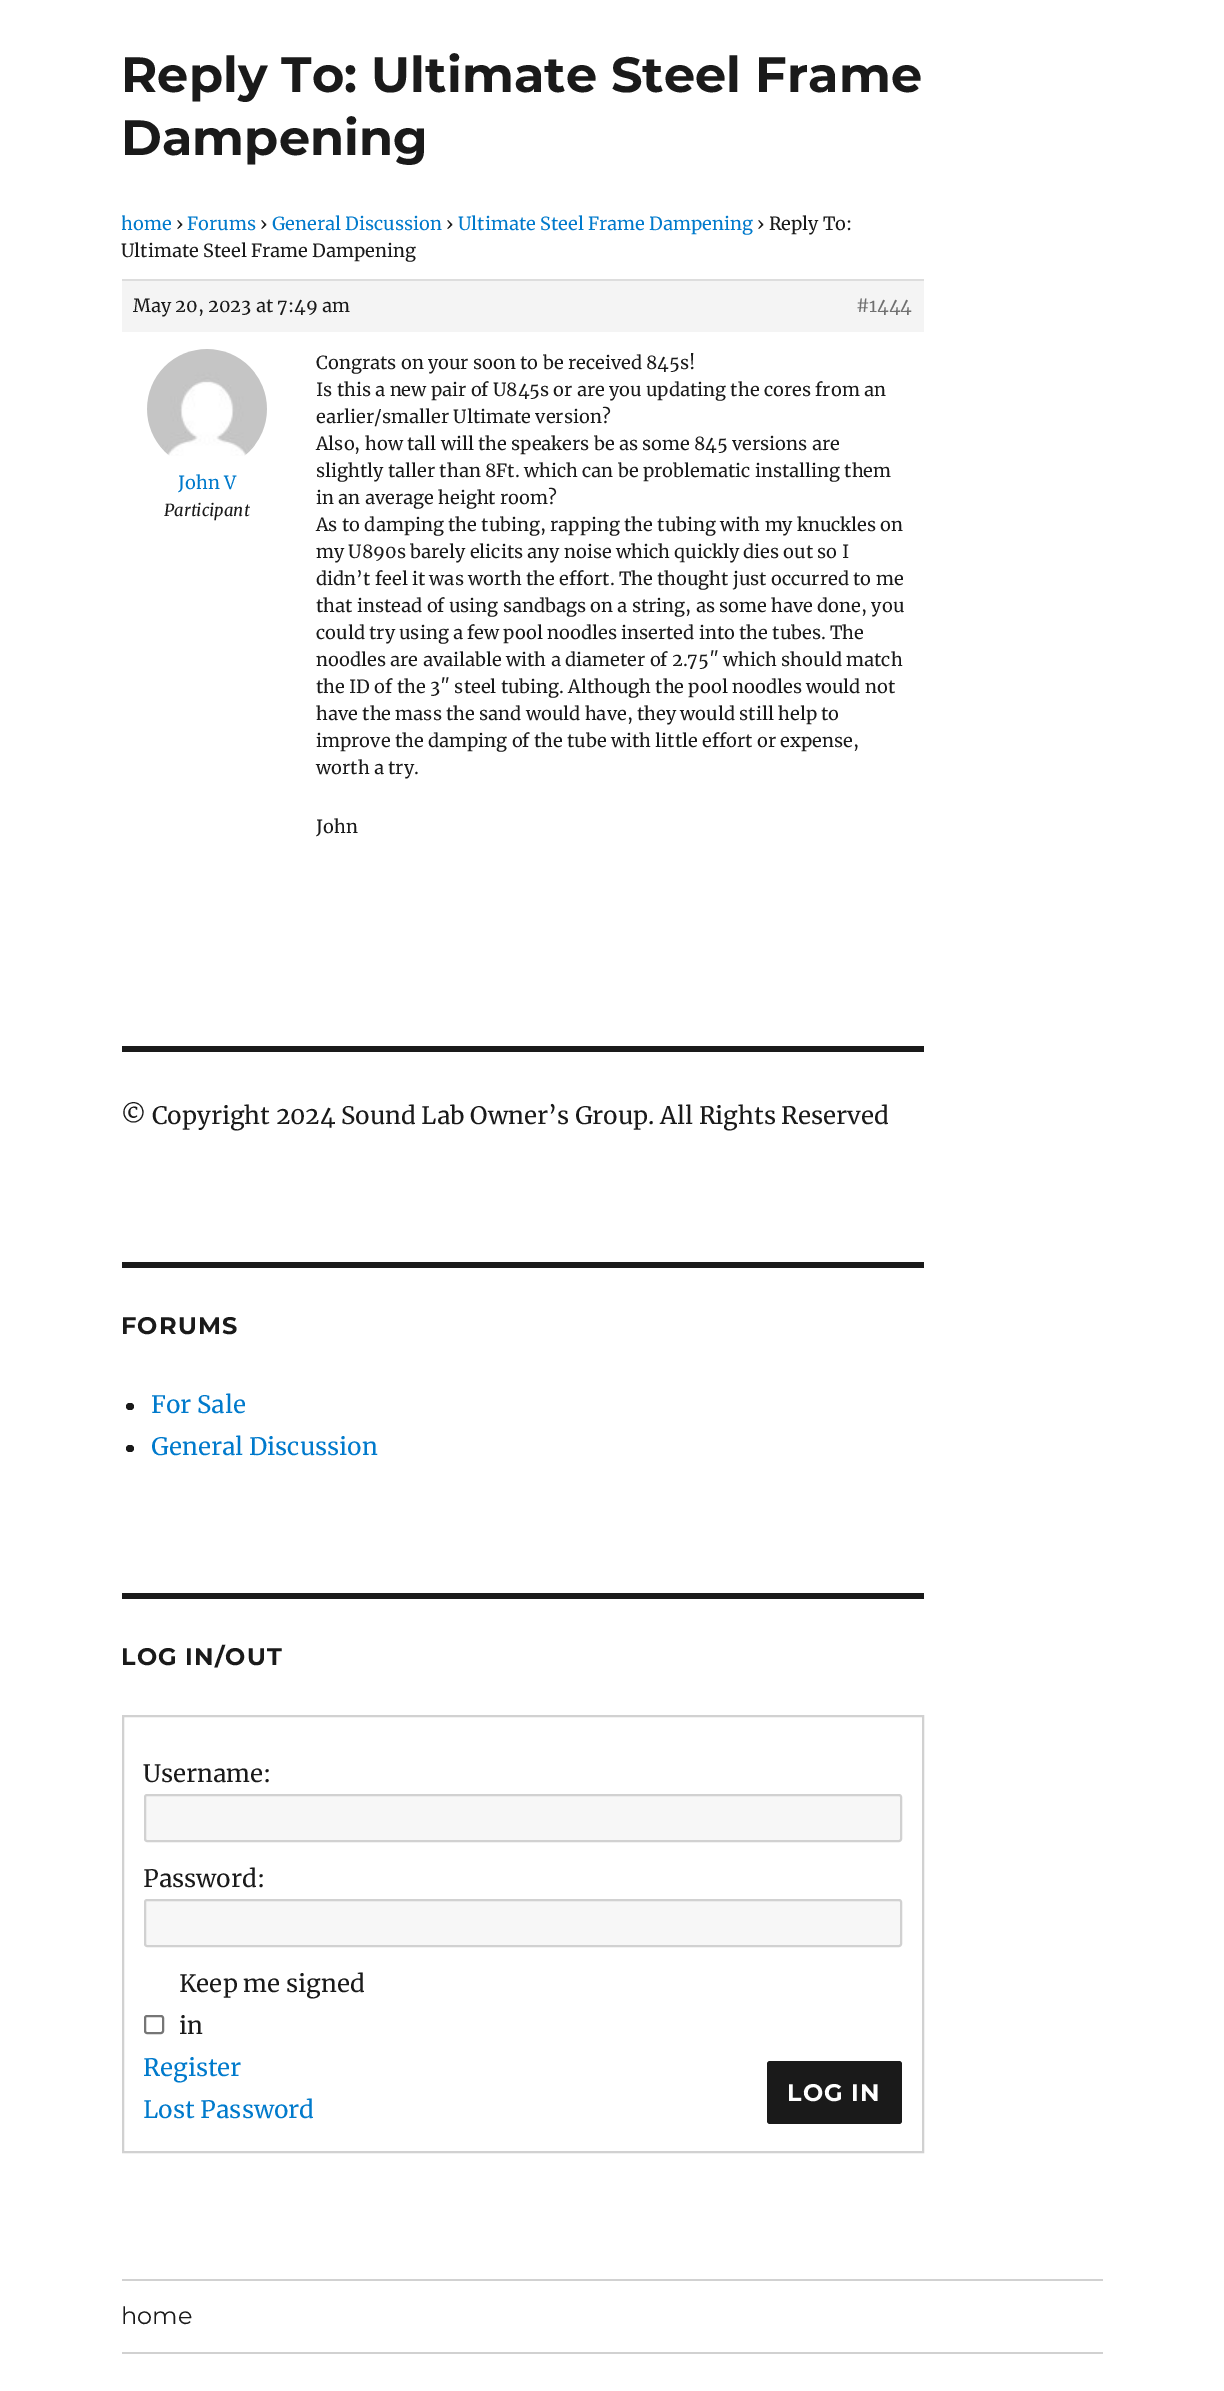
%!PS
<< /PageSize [1224 2391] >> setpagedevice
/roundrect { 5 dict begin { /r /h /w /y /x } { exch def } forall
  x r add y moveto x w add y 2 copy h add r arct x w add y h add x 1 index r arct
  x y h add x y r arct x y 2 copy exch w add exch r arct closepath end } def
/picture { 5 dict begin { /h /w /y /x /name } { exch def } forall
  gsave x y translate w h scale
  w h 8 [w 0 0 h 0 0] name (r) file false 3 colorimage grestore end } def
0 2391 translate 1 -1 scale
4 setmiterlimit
1 setgray
0 0 1224 2391 rectfill
/Montserrat-Thin [49.5 0 0 -49.5 0 0] selectfont
0.102 setgray
121 92 moveto (Reply To: Ultimate Steel Frame) show
121 155 moveto (Dampening) show
gsave
122 210 802 680 rectclip
/Merriweather-Regular [18 0 0 -18 0 0] selectfont
0 0.478 0.8 setrgbcolor
121 230 moveto (home) show
grestore
/Merriweather-Regular [18 0 0 -18 0 0] selectfont
176 230 moveto (›) show
0 0.478 0.8 setrgbcolor
187 230 moveto (Forums) show
0.102 setgray
260 230 moveto (›) show
0 0.478 0.8 setrgbcolor
272 230 moveto (General Discussion) show
0.102 setgray
446 230 moveto (›) show
0 0.478 0.8 setrgbcolor
458 230 moveto (Ultimate Steel Frame Dampening) show
0.102 setgray
757 230 moveto (› Reply To:) show
121 257 moveto (Ultimate Steel Frame Dampening) show
0.957 setgray
122 281 802 51 rectfill
0.867 setgray
122 279 802 2 rectfill
0.102 setgray
133 312 moveto (May 20, 2023 at 7:49 am) show
0.439 setgray
856 312 moveto (#1444) show
(img1.rgb) 147 349 120 107 picture
0 0.478 0.8 setrgbcolor
178 489 moveto (John V) show
/Merriweather-Italic [16.5 0 0 -16.5 0 0] selectfont
0.102 setgray
164 516 moveto (Participant) show
/Merriweather-Regular [18 0 0 -18 0 0] selectfont
316 369 moveto (Congrats on your soon to be received 845s!) show
316 396 moveto (Is this a new pair of U845s or are you updating the cores from an) show
316 423 moveto (earlier/smaller Ultimate version?) show
316 450 moveto (Also, how tall will the speakers be as some 845 versions are) show
316 477 moveto (slightly taller than 8Ft. which can be problematic installing them) show
316 504 moveto (in an average height room?) show
316 531 moveto (As to damping the tubing, rapping the tubing with my knuckles on) show
316 558 moveto (my U890s barely elicits any noise which quickly dies out so I) show
316 585 moveto (didn’t feel it was worth the effort. The thought just occurred to me) show
316 612 moveto (that instead of using sandbags on a string, as some have done, you) show
316 639 moveto (could try using a few pool noodles inserted into the tubes. The) show
316 666 moveto (noodles are available with a diameter of 2.75″ which should match) show
316 693 moveto (the ID of the 3″ steel tubing. Although the pool noodles would not) show
316 720 moveto (have the mass the sand would have, they would still help to) show
316 747 moveto (improve the damping of the tube with little effort or expense,) show
316 774 moveto (worth a try.) show
316 833 moveto (John) show
122 1046 802 6 rectfill
/Merriweather-Regular [24 0 0 -24 0 0] selectfont
121 1124 moveto (© Copyright 2024 Sound Lab Owner’s Group. All Rights Reserved) show
122 1262 802 6 rectfill
/Montserrat-Thin [24 0 0 -24 0 0] selectfont
121 1334 moveto 1.1 0 (FORUMS) ashow
126 1403 8 7 3.5 roundrect fill
/Merriweather-Regular [24 0 0 -24 0 0] selectfont
0 0.478 0.8 setrgbcolor
151 1413 moveto (For Sale) show
0.102 setgray
126 1445 8 7 3.5 roundrect fill
0 0.478 0.8 setrgbcolor
151 1455 moveto (General Discussion) show
0.102 setgray
122 1593 802 6 rectfill
/Montserrat-Thin [24 0 0 -24 0 0] selectfont
121 1665 moveto 1.1 0 (LOG IN/OUT) ashow
0.82 setgray
2 setlinewidth
123 1716 800 436 rectstroke
/Merriweather-Regular [24 0 0 -24 0 0] selectfont
0.102 setgray
143 1782 moveto (Username:) show
0.969 setgray
145 1795 756 46 2 roundrect gsave fill grestore
0.82 setgray
stroke
0.102 setgray
143 1887 moveto (Password:) show
0.969 setgray
145 1900 756 46 2 roundrect gsave fill grestore
0.82 setgray
stroke
0.463 setgray
145 2016 18 17 2 roundrect stroke
0.102 setgray
179 1992 moveto (Keep me signed) show
179 2034 moveto (in) show
0 0.478 0.8 setrgbcolor
143 2076 moveto (Register) show
143 2118 moveto (Lost Password) show
0.102 setgray
767 2061 135 63 3 roundrect fill
/Montserrat-Thin [24 0 0 -24 0 0] selectfont
1 setgray
787 2101 moveto 1.1 0 (LOG IN) ashow
0.82 setgray
122 2352 981 2 rectfill
122 2279 981 2 rectfill
/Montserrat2-Thin [24 0 0 -24 0 0] selectfont
0.102 setgray
121 2324 moveto (home) show
showpage
